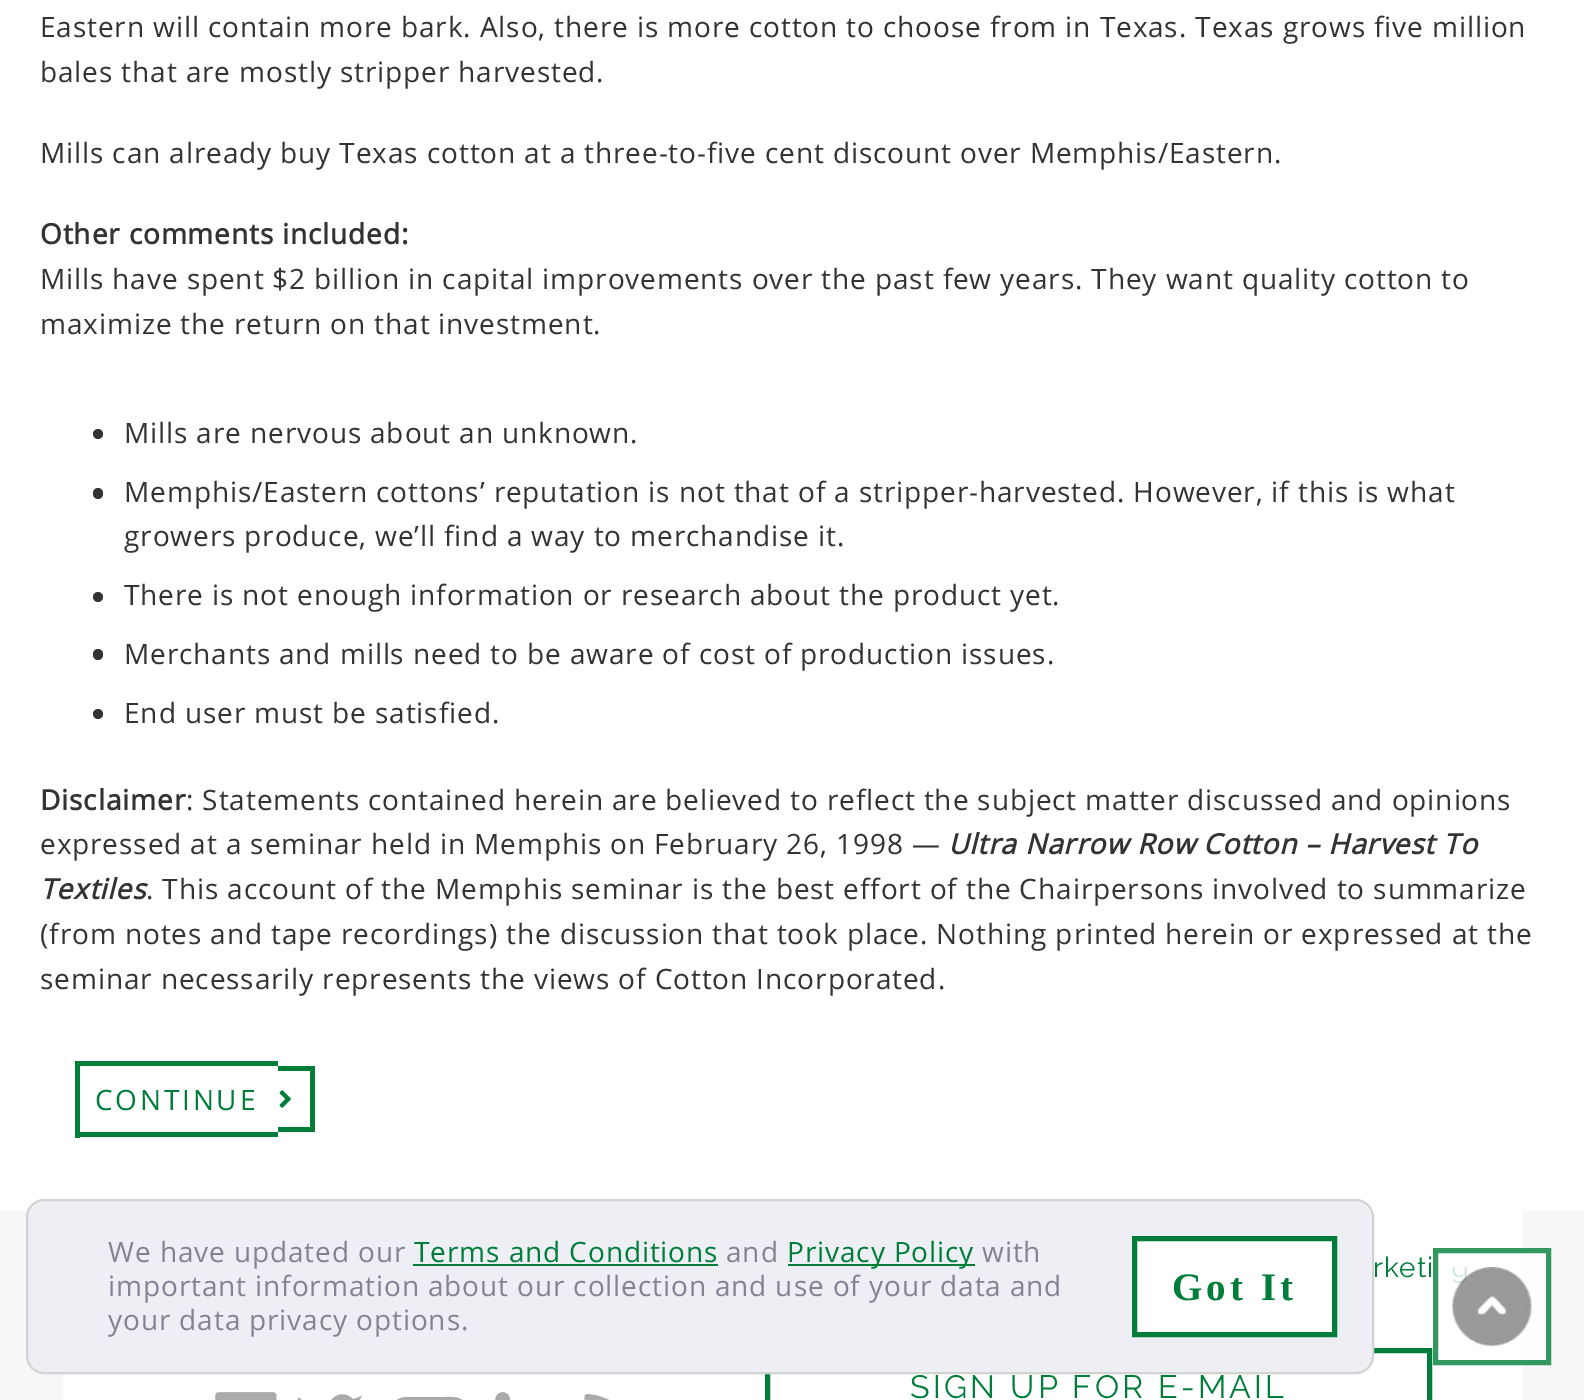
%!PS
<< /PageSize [1584 1400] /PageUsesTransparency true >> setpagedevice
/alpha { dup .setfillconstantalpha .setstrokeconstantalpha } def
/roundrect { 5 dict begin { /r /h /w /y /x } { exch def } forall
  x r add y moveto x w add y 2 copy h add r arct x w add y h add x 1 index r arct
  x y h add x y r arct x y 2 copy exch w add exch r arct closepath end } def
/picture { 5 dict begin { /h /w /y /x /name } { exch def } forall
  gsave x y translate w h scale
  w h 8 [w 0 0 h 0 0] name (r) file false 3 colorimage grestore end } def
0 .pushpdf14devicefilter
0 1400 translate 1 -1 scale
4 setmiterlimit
0.969 setgray
0 0 1584 1400 rectfill
1 setgray
0 0 1584 1211 rectfill
/OpenSans-Regular [28 0 0 -28 0 0] selectfont
0.2 setgray
40 37 moveto 0.88 0 (Eastern will contain more bark. Also, there is more cotton to choose from in Texas. Texas grows five million) ashow
40 82 moveto 0.88 0 (bales that are mostly stripper harvested.) ashow
40 163 moveto 0.88 0 (Mills can already buy Texas cotton at a three-to-five cent discount over Memphis/Eastern.) ashow
/OpenSans-Bold [28 0 0 -28 0 0] selectfont
40 244 moveto 0.88 0 (Other comments included:) ashow
/OpenSans-Regular [28 0 0 -28 0 0] selectfont
40 289 moveto 0.88 0 (Mills have spent $2 billion in capital improvements over the past few years. They want quality cotton to) ashow
40 334 moveto 0.88 0 (maximize the return on that investment.) ashow
newpath 98 434 5 0 360 arc closepath fill
124 443 moveto 0.88 0 (Mills are nervous about an unknown.) ashow
93 488 10 11 5 roundrect fill
124 502 moveto 0.88 0 (Memphis/Eastern cottons’ reputation is not that of a stripper-harvested. However, if this is what) ashow
124 546 moveto 0.88 0 (growers produce, we’ll find a way to merchandise it.) ashow
newpath 98 597 5 0 360 arc closepath fill
124 605 moveto 0.88 0 (There is not enough information or research about the product yet.) ashow
93 649 10 11 5 roundrect fill
124 664 moveto 0.88 0 (Merchants and mills need to be aware of cost of production issues.) ashow
newpath 98 714 5 0 360 arc closepath fill
124 723 moveto 0.88 0 (End user must be satisfied.) ashow
/OpenSans-Bold [28 0 0 -28 0 0] selectfont
40 810 moveto 0.88 0 (Disclaimer) ashow
/OpenSans-Regular [28 0 0 -28 0 0] selectfont
186 810 moveto 0.88 0 (: Statements contained herein are believed to reflect the subject matter discussed and opinions) ashow
40 854 moveto 0.88 0 (expressed at a seminar held in Memphis on February 26, 1998 —) ashow
/OpenSans-BoldItalic [28 0 0 -28 0 0] selectfont
948 854 moveto 0.88 0 (Ultra Narrow Row Cotton – Harvest To) ashow
40 899 moveto 0.88 0 (Textiles) ashow
/OpenSans-Regular [28 0 0 -28 0 0] selectfont
146 899 moveto 0.88 0 (. This account of the Memphis seminar is the best effort of the Chairpersons involved to summarize) ashow
40 944 moveto 0.88 0 (\(from notes and tape recordings\) the discussion that took place. Nothing printed herein or expressed at the) ashow
40 989 moveto 0.88 0 (seminar necessarily represents the views of Cotton Incorporated.) ashow
0 0.49 0.224 setrgbcolor
95 1110 moveto 2.75 0 (CONTINUE) ashow
75 1061 203 5 rectfill
75 1132 203 5 rectfill
75 1061 5 77 rectfill
278 1066 37 5 rectfill
310 1066 5 66 rectfill
278 1127 37 5 rectfill
(img1.rgb) 279 1090 12 18 picture
1 setgray
63 1211 1460 189 rectfill
/Raleway-Regular [28 0 0 -28 0 0] selectfont
0 0.49 0.224 setrgbcolor
1373 1277 moveto 0.88 0 (rketi) ashow
(img2.rgb) 215 1392 62 8 picture
(img3.rgb) 297 1394 65 6 picture
0.667 setgray
newpath 465 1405 moveto 463 1396 452 1397 445 1397 curveto 423 1397 lineto 406 1397 lineto 393 1398 393 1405 392 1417 curveto 392 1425 392 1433 394 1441 curveto 396 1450 412 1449 419 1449 curveto 453 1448 lineto 467 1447 467 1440 467 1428 curveto 467 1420 467 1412 465 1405 curveto closepath 422 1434 moveto 422 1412 lineto 442 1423 lineto closepath fill
(img4.rgb) 495 1392 15 8 picture
(img5.rgb) 584 1394 25 6 picture
0 0.49 0.224 setrgbcolor
5 setlinewidth
767.5 1350.5 662 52 rectstroke
/Raleway-Regular [32.25 0 0 -32.25 0 0] selectfont
910 1398 moveto 3.25 0 (SIGN UP FOR E-MAIL) ashow
0.929 0.937 0.961 setrgbcolor
27 1200 1346 173 17 roundrect gsave fill grestore
0.827 setgray
2 setlinewidth
stroke
/OpenSans-Regular [28 0 0 -28 0 0] selectfont
0.514 0.514 0.569 setrgbcolor
108 1262 moveto 0.88 0 (We have updated our) ashow
0 0.49 0.224 setrgbcolor
414 1262 moveto 0.88 0 (Terms and Conditions) ashow
413 1264 305 2 rectfill
0.514 0.514 0.569 setrgbcolor
726 1262 moveto 0.88 0 (and) ashow
0 0.49 0.224 setrgbcolor
788 1264 187 2 rectfill
787 1262 moveto 0.88 0 (Privacy Policy) ashow
0.514 0.514 0.569 setrgbcolor
982 1262 moveto 0.88 0 (with) ashow
108 1296 moveto 0.88 0 (important information about our collection and use of your data and) ashow
108 1330 moveto 0.88 0 (your data privacy options.) ashow
1 setgray
newpath 1134.5 1238.5 moveto 1334.5 1238.5 lineto 1334.5 1334.5 lineto 1134.5 1334.5 lineto closepath gsave fill grestore
0 0.49 0.224 setrgbcolor
5 setlinewidth
stroke
/LiberationSerif-Bold [39 0 0 -39 0 0] selectfont
1172 1300 moveto 4 0 (Got It) ashow
0.8 alpha
1 setgray
1523 1248 28 117 rectfill
0 0.49 0.224 setrgbcolor
1435.5 1250.5 113 112 rectstroke
1 alpha
(img6.rgb) 1452 1267 80 79 picture
.poppdf14devicefilter showpage
